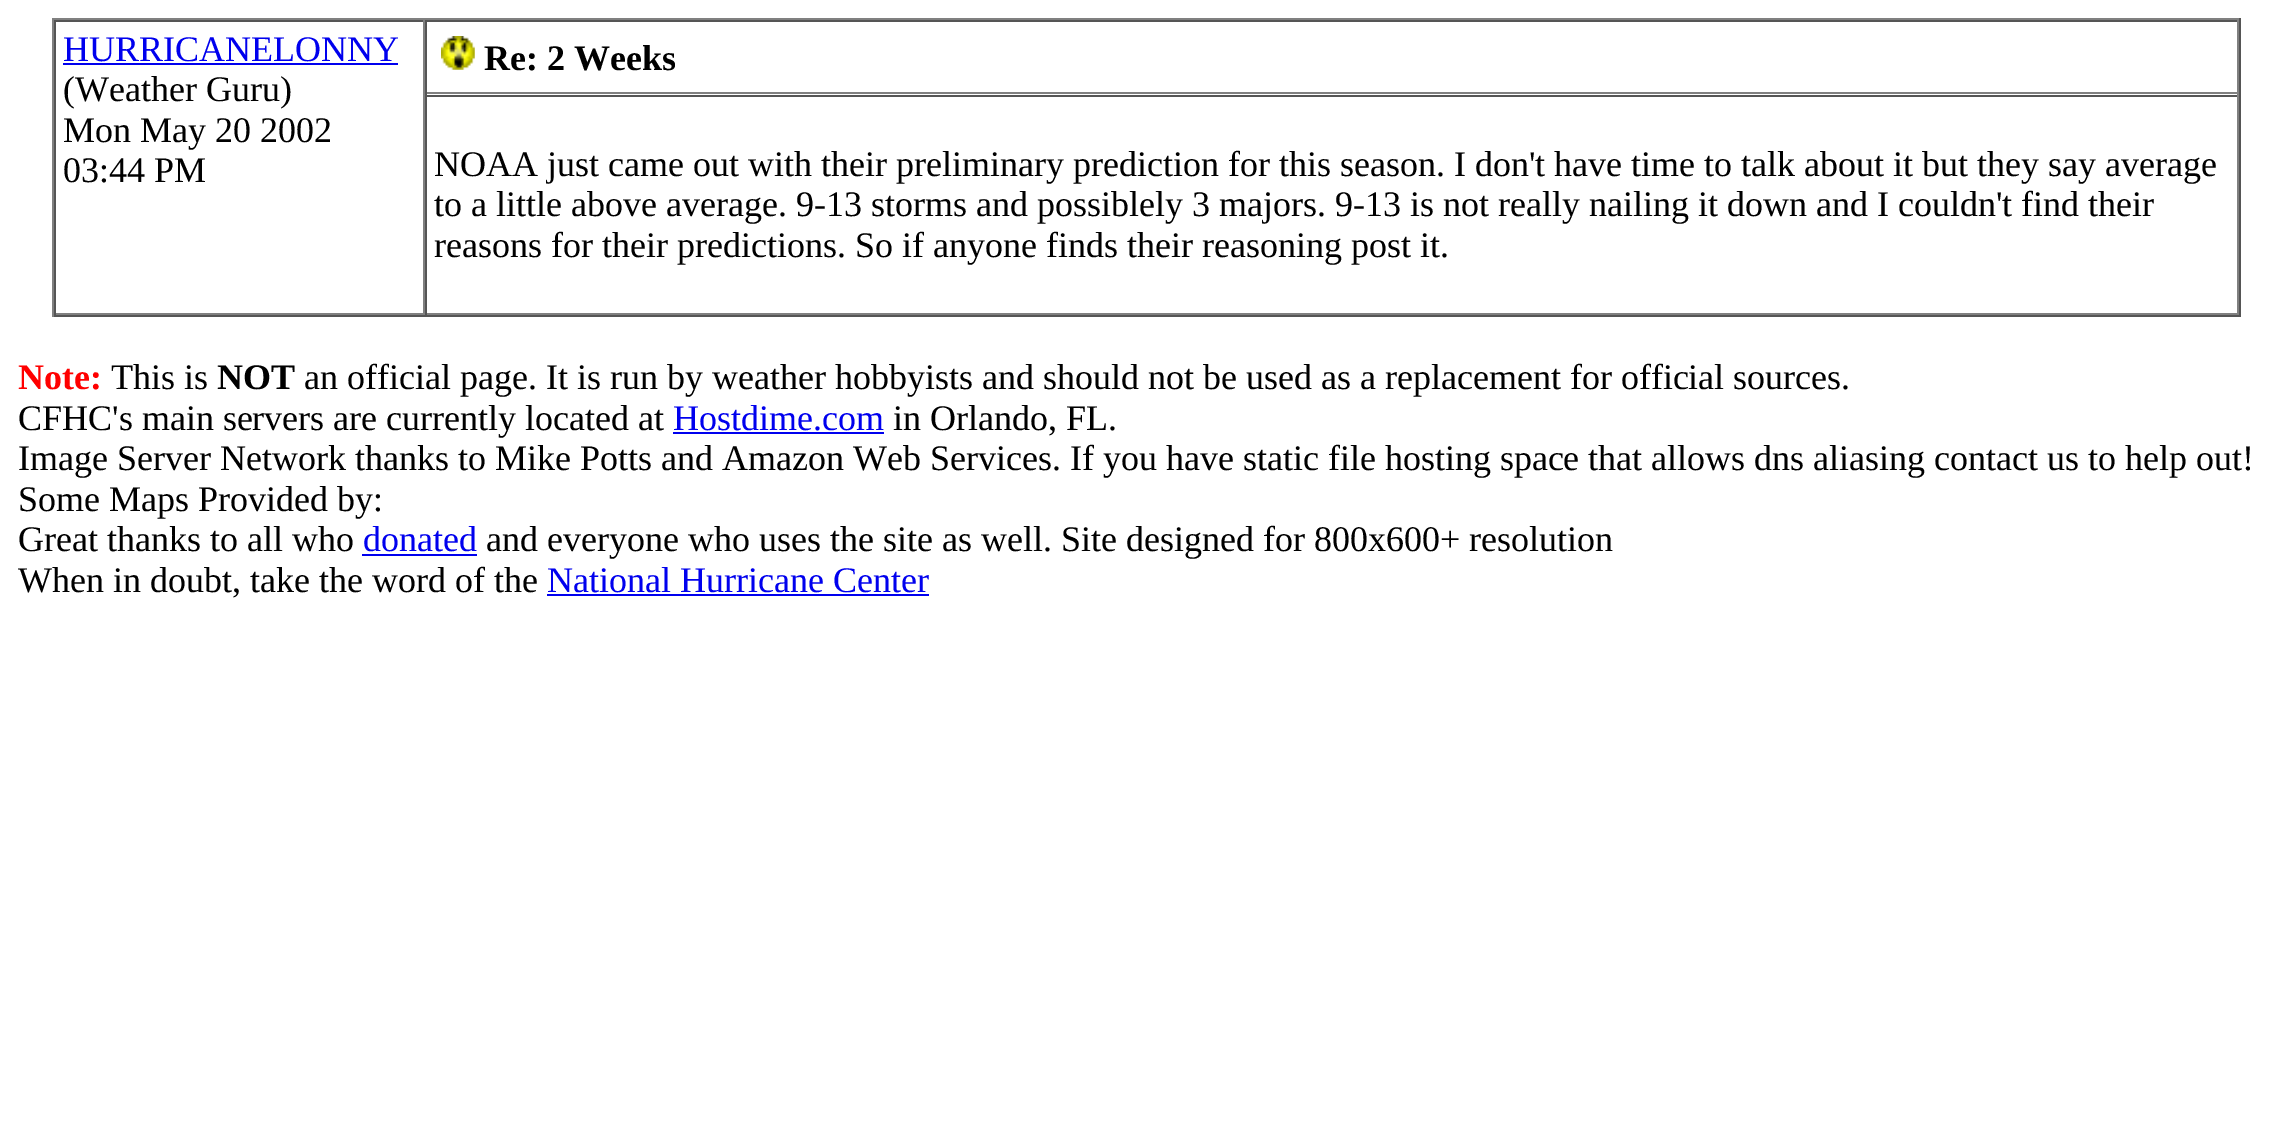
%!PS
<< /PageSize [2292 1123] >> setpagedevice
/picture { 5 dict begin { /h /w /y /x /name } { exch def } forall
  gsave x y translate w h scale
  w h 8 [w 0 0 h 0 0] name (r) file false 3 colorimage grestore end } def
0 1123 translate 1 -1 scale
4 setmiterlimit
1 setgray
0 0 2292 1123 rectfill
0.502 setgray
52 18 2189 2 rectfill
0.333 setgray
2239 18 2 299 rectfill
52 315 2189 2 rectfill
0.502 setgray
52 18 2 299 rectfill
0.333 setgray
54 20 2185 2 rectfill
0.502 setgray
423 20 2 295 rectfill
54 313 371 2 rectfill
0.333 setgray
54 20 2 295 rectfill
/LiberationSerif-Regular [36 0 0 -36 0 0] selectfont
0 0 0.933 setrgbcolor
63 61 moveto (HURRICANELONNY) show
63 63 335 2 rectfill
0 setgray
63 101 moveto (\(Weather Guru\)) show
63 142 moveto (Mon May 20 2002) show
63 182 moveto (03:44 PM) show
0.502 setgray
2237 20 2 75 rectfill
425 92 1814 2 rectfill
0.333 setgray
425 20 2 75 rectfill
(img1.rgb) 441 36 34 34 picture
/LiberationSerif-Bold [36 0 0 -36 0 0] selectfont
0 setgray
484 70 moveto (Re: 2 Weeks) show
0.333 setgray
425 95 1814 2 rectfill
0.502 setgray
2237 95 2 220 rectfill
425 313 1814 2 rectfill
0.333 setgray
425 95 2 220 rectfill
/LiberationSerif-Regular [36 0 0 -36 0 0] selectfont
0 setgray
434 176 moveto (NOAA just came out with their preliminary prediction for this season. I don't have time to talk about it but they say average) show
434 216 moveto (to a little above average. 9-13 storms and possiblely 3 majors. 9-13 is not really nailing it down and I couldn't find their) show
434 257 moveto (reasons for their predictions. So if anyone finds their reasoning post it.) show
/LiberationSerif-Bold [36 0 0 -36 0 0] selectfont
1 0 0 setrgbcolor
18 389 moveto (Note:) show
/LiberationSerif-Regular [36 0 0 -36 0 0] selectfont
0 setgray
111 389 moveto (This is) show
/LiberationSerif-Bold [36 0 0 -36 0 0] selectfont
217 389 moveto (NOT) show
/LiberationSerif-Regular [36 0 0 -36 0 0] selectfont
304 389 moveto (an official page. It is run by weather hobbyists and should not be used as a replacement for official sources.) show
18 430 moveto (CFHC's main servers are currently located at) show
0 0 0.933 setrgbcolor
673 430 moveto (Hostdime.com) show
673 432 211 2 rectfill
0 setgray
893 430 moveto (in Orlando, FL.) show
18 470 moveto (Image Server Network thanks to Mike Potts and Amazon Web Services. If you have static file hosting space that allows dns aliasing contact us to help out!) show
18 511 moveto (Some Maps Provided by:) show
18 551 moveto (Great thanks to all who) show
0 0 0.933 setrgbcolor
363 551 moveto (donated) show
362 554 115 2 rectfill
0 setgray
486 551 moveto (and everyone who uses the site as well. Site designed for 800x600+ resolution) show
18 592 moveto (When in doubt, take the word of the) show
0 0 0.933 setrgbcolor
547 592 moveto (National Hurricane Center) show
547 594 382 2 rectfill
showpage
